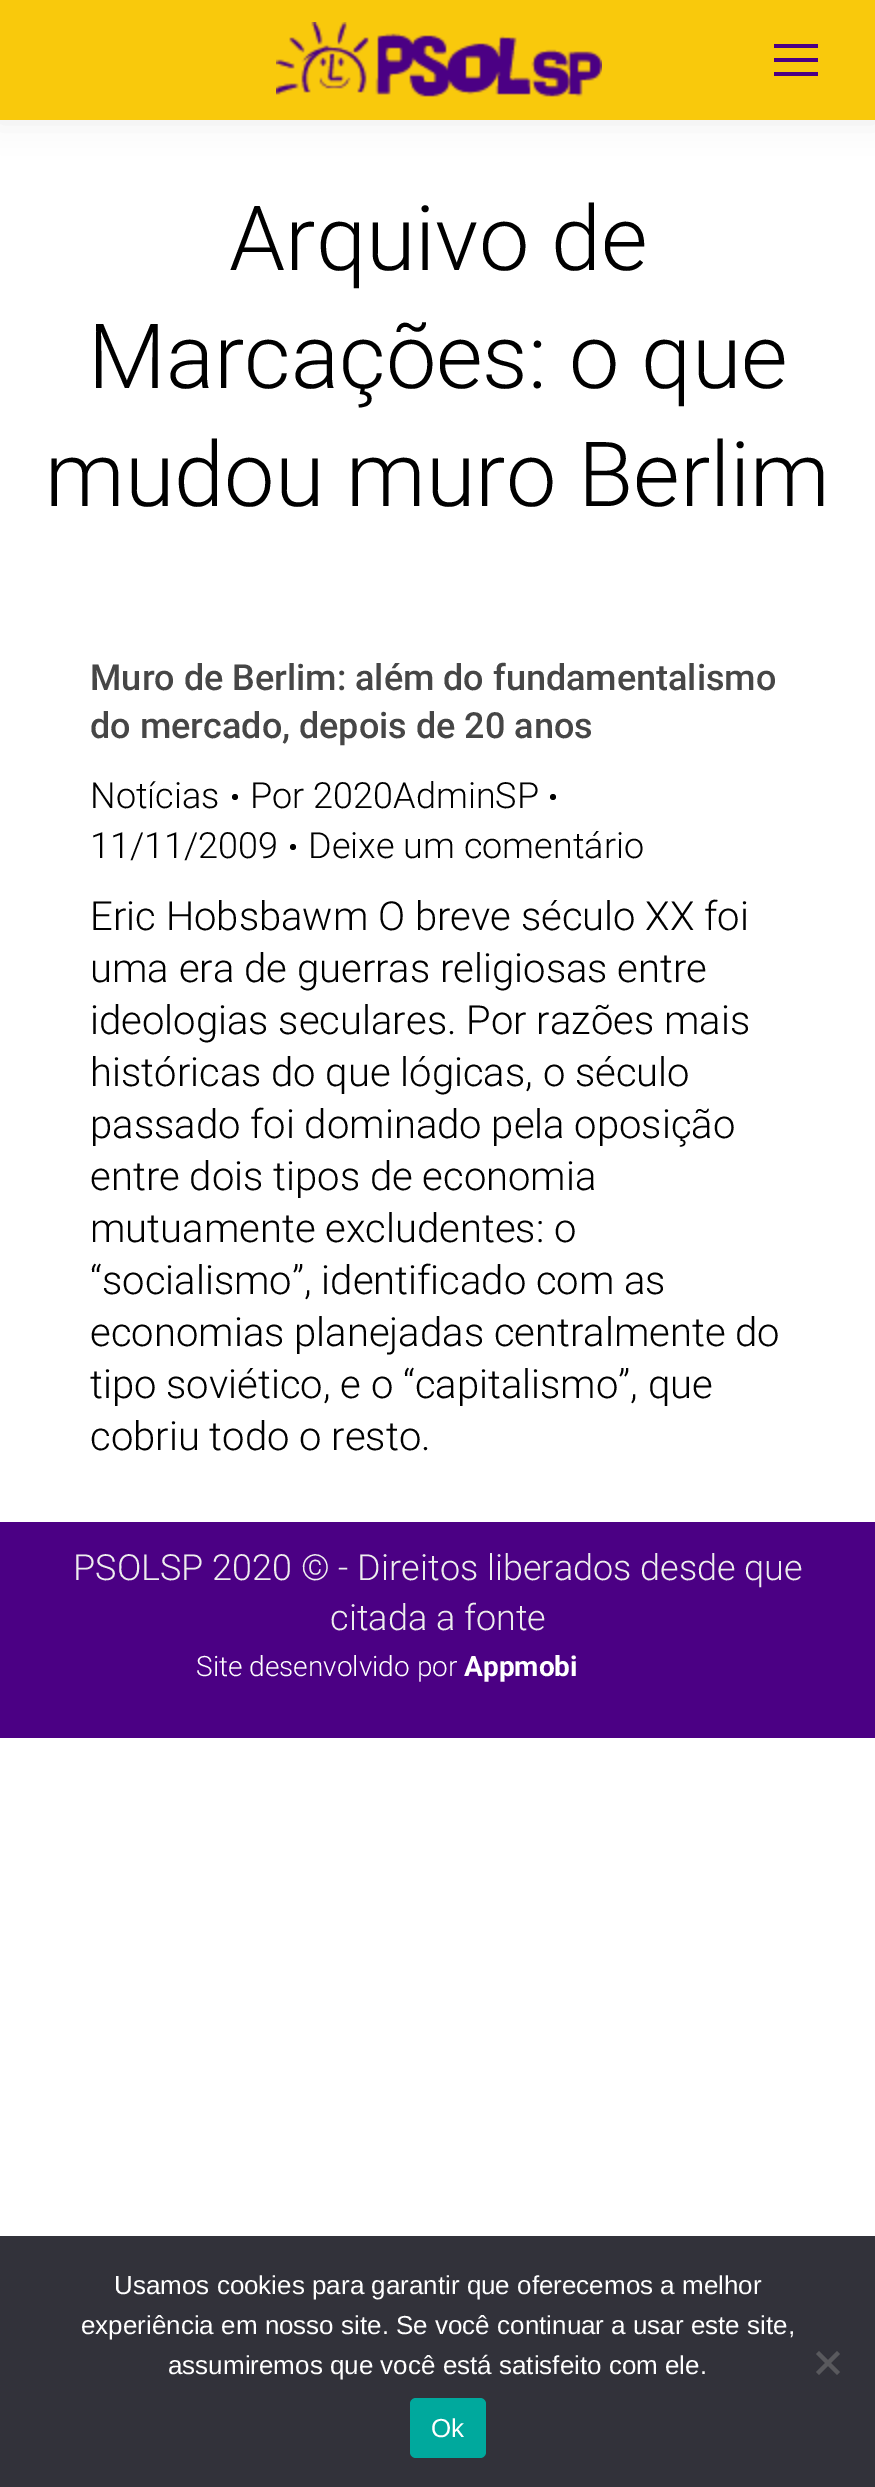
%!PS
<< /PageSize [875 2487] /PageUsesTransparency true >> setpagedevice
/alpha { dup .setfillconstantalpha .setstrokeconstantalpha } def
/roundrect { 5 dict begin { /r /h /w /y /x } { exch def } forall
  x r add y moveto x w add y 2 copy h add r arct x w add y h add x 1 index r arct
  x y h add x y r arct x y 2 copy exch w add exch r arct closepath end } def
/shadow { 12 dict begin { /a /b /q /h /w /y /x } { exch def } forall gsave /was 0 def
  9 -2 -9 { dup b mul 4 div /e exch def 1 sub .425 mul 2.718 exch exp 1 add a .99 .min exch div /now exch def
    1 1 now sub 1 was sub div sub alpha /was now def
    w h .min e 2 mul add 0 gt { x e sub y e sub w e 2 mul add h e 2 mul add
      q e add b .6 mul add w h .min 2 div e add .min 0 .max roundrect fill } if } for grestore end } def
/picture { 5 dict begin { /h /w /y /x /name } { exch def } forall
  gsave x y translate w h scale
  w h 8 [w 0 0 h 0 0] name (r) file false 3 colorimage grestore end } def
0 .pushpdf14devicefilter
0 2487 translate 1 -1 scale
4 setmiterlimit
1 setgray
0 0 875 2487 rectfill
0 setgray
-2 -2 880 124 0 15 0.07 shadow
0.976 0.788 0.047 setrgbcolor
0 0 875 120 rectfill
(img1.rgb) 276 22 326 75 picture
0.294 0 0.518 setrgbcolor
774 44 44 4 rectfill
774 58 44 4 rectfill
774 72 44 4 rectfill
/Roboto-Light [90 0 0 -90 0 0] selectfont
0 setgray
229 270 moveto (Arquivo de) show
88 388 moveto (Marcações: o que) show
45 506 moveto (mudou muro Berlim) show
/Roboto-Medium [36 0 0 -36 0 0] selectfont
0.275 setgray
90 690 moveto (Muro de Berlim: além do fundamentalismo) show
90 738 moveto (do mercado, depois de 20 anos) show
/Roboto-Light [36 0 0 -36 0 0] selectfont
0 setgray
90 808 moveto (Notícias) show
newpath 235 797 3 0 360 arc closepath fill
250 808 moveto (Por 2020AdminSP) show
newpath 553 797 3 0 360 arc closepath fill
90 858 moveto (11/11/2009) show
newpath 293 847 3 0 360 arc closepath fill
308 858 moveto (Deixe um comentário) show
/Roboto-Light [40 0 0 -40 0 0] selectfont
90 930 moveto (Eric Hobsbawm O breve século XX foi) show
90 982 moveto (uma era de guerras religiosas entre) show
90 1034 moveto (ideologias seculares. Por razões mais) show
90 1086 moveto (históricas do que lógicas, o século) show
90 1138 moveto (passado foi dominado pela oposição) show
90 1190 moveto (entre dois tipos de economia) show
90 1242 moveto (mutuamente excludentes: o) show
90 1294 moveto (“socialismo”, identificado com as) show
90 1346 moveto (economias planejadas centralmente do) show
90 1398 moveto (tipo soviético, e o “capitalismo”, que) show
90 1450 moveto (cobriu todo o resto.) show
0.294 0 0.518 setrgbcolor
0 1522 875 216 rectfill
/Roboto-Light [36 0 0 -36 0 0] selectfont
0.933 setgray
73 1580 moveto (PSOLSP 2020 © - Direitos liberados desde que) show
330 1630 moveto (citada a fonte) show
/Roboto-Light [28 0 0 -28 0 0] selectfont
1 setgray
196 1676 moveto (Site desenvolvido por) show
/Roboto-Bold [28 0 0 -28 0 0] selectfont
464 1676 moveto (Appmobi) show
0.196 0.196 0.227 setrgbcolor
0 2236 875 251 rectfill
/LiberationSans-Regular [26 0 0 -26 0 0] selectfont
1 setgray
114 2294 moveto (Usamos cookies para garantir que oferecemos a melhor) show
81 2334 moveto (experiência em nosso site. Se você continuar a usar este site,) show
168 2374 moveto (assumiremos que você está satisfeito com ele.) show
0.349 0.349 0.365 setrgbcolor
newpath 837 2351 moveto 840 2354 lineto 819 2375 lineto 816 2372 lineto closepath fill
newpath 816 2354 moveto 819 2351 lineto 840 2372 lineto 837 2375 lineto closepath fill
0 0.663 0.616 setrgbcolor
410 2398 76 60 6 roundrect fill
1 setgray
431 2437 moveto (Ok) show
.poppdf14devicefilter showpage
